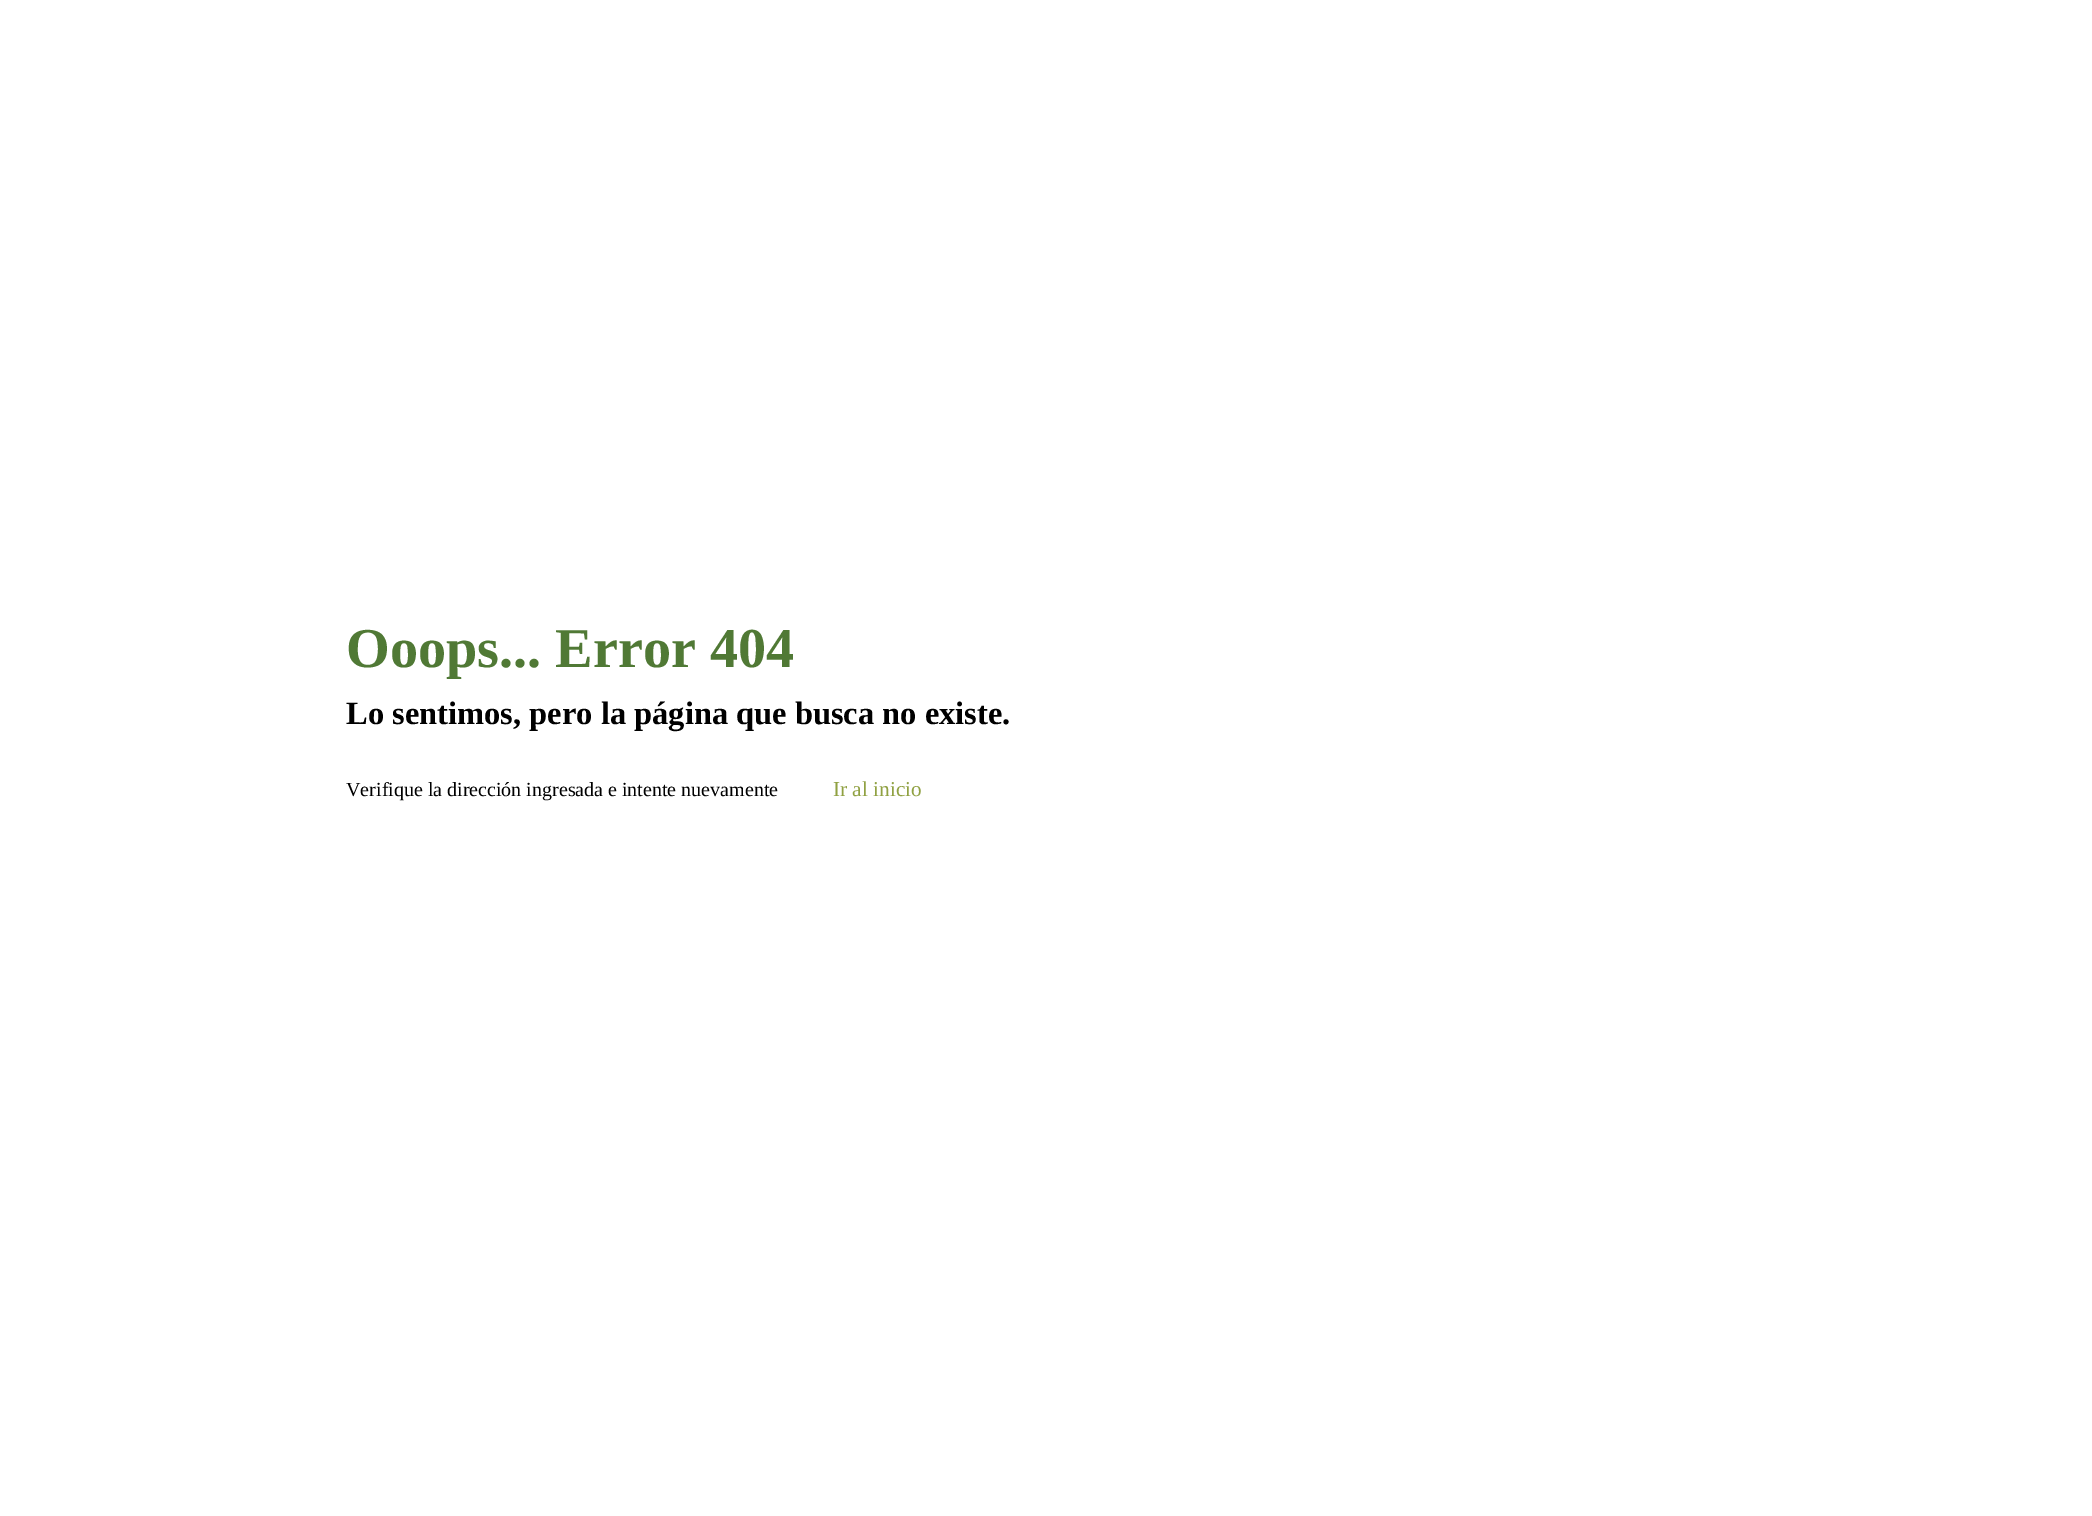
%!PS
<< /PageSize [2092 1516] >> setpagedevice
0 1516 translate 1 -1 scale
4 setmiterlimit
1 setgray
0 0 2092 1516 rectfill
/LiberationSerif-Bold [56.25 0 0 -56.25 0 0] selectfont
0.314 0.475 0.208 setrgbcolor
346 667 moveto (Ooops... Error 404) show
/LiberationSerif-Bold [32.5 0 0 -32.5 0 0] selectfont
0 setgray
346 724 moveto (Lo sentimos, pero la página que busca no existe.) show
/LiberationSerif-Regular [20 0 0 -20 0 0] selectfont
346 796 moveto (Verifique la dirección ingresada e intente nuevamente) show
/LiberationSerif-Regular [21.25 0 0 -21.25 0 0] selectfont
0.565 0.631 0.259 setrgbcolor
833 796 moveto (Ir al inicio) show
showpage
